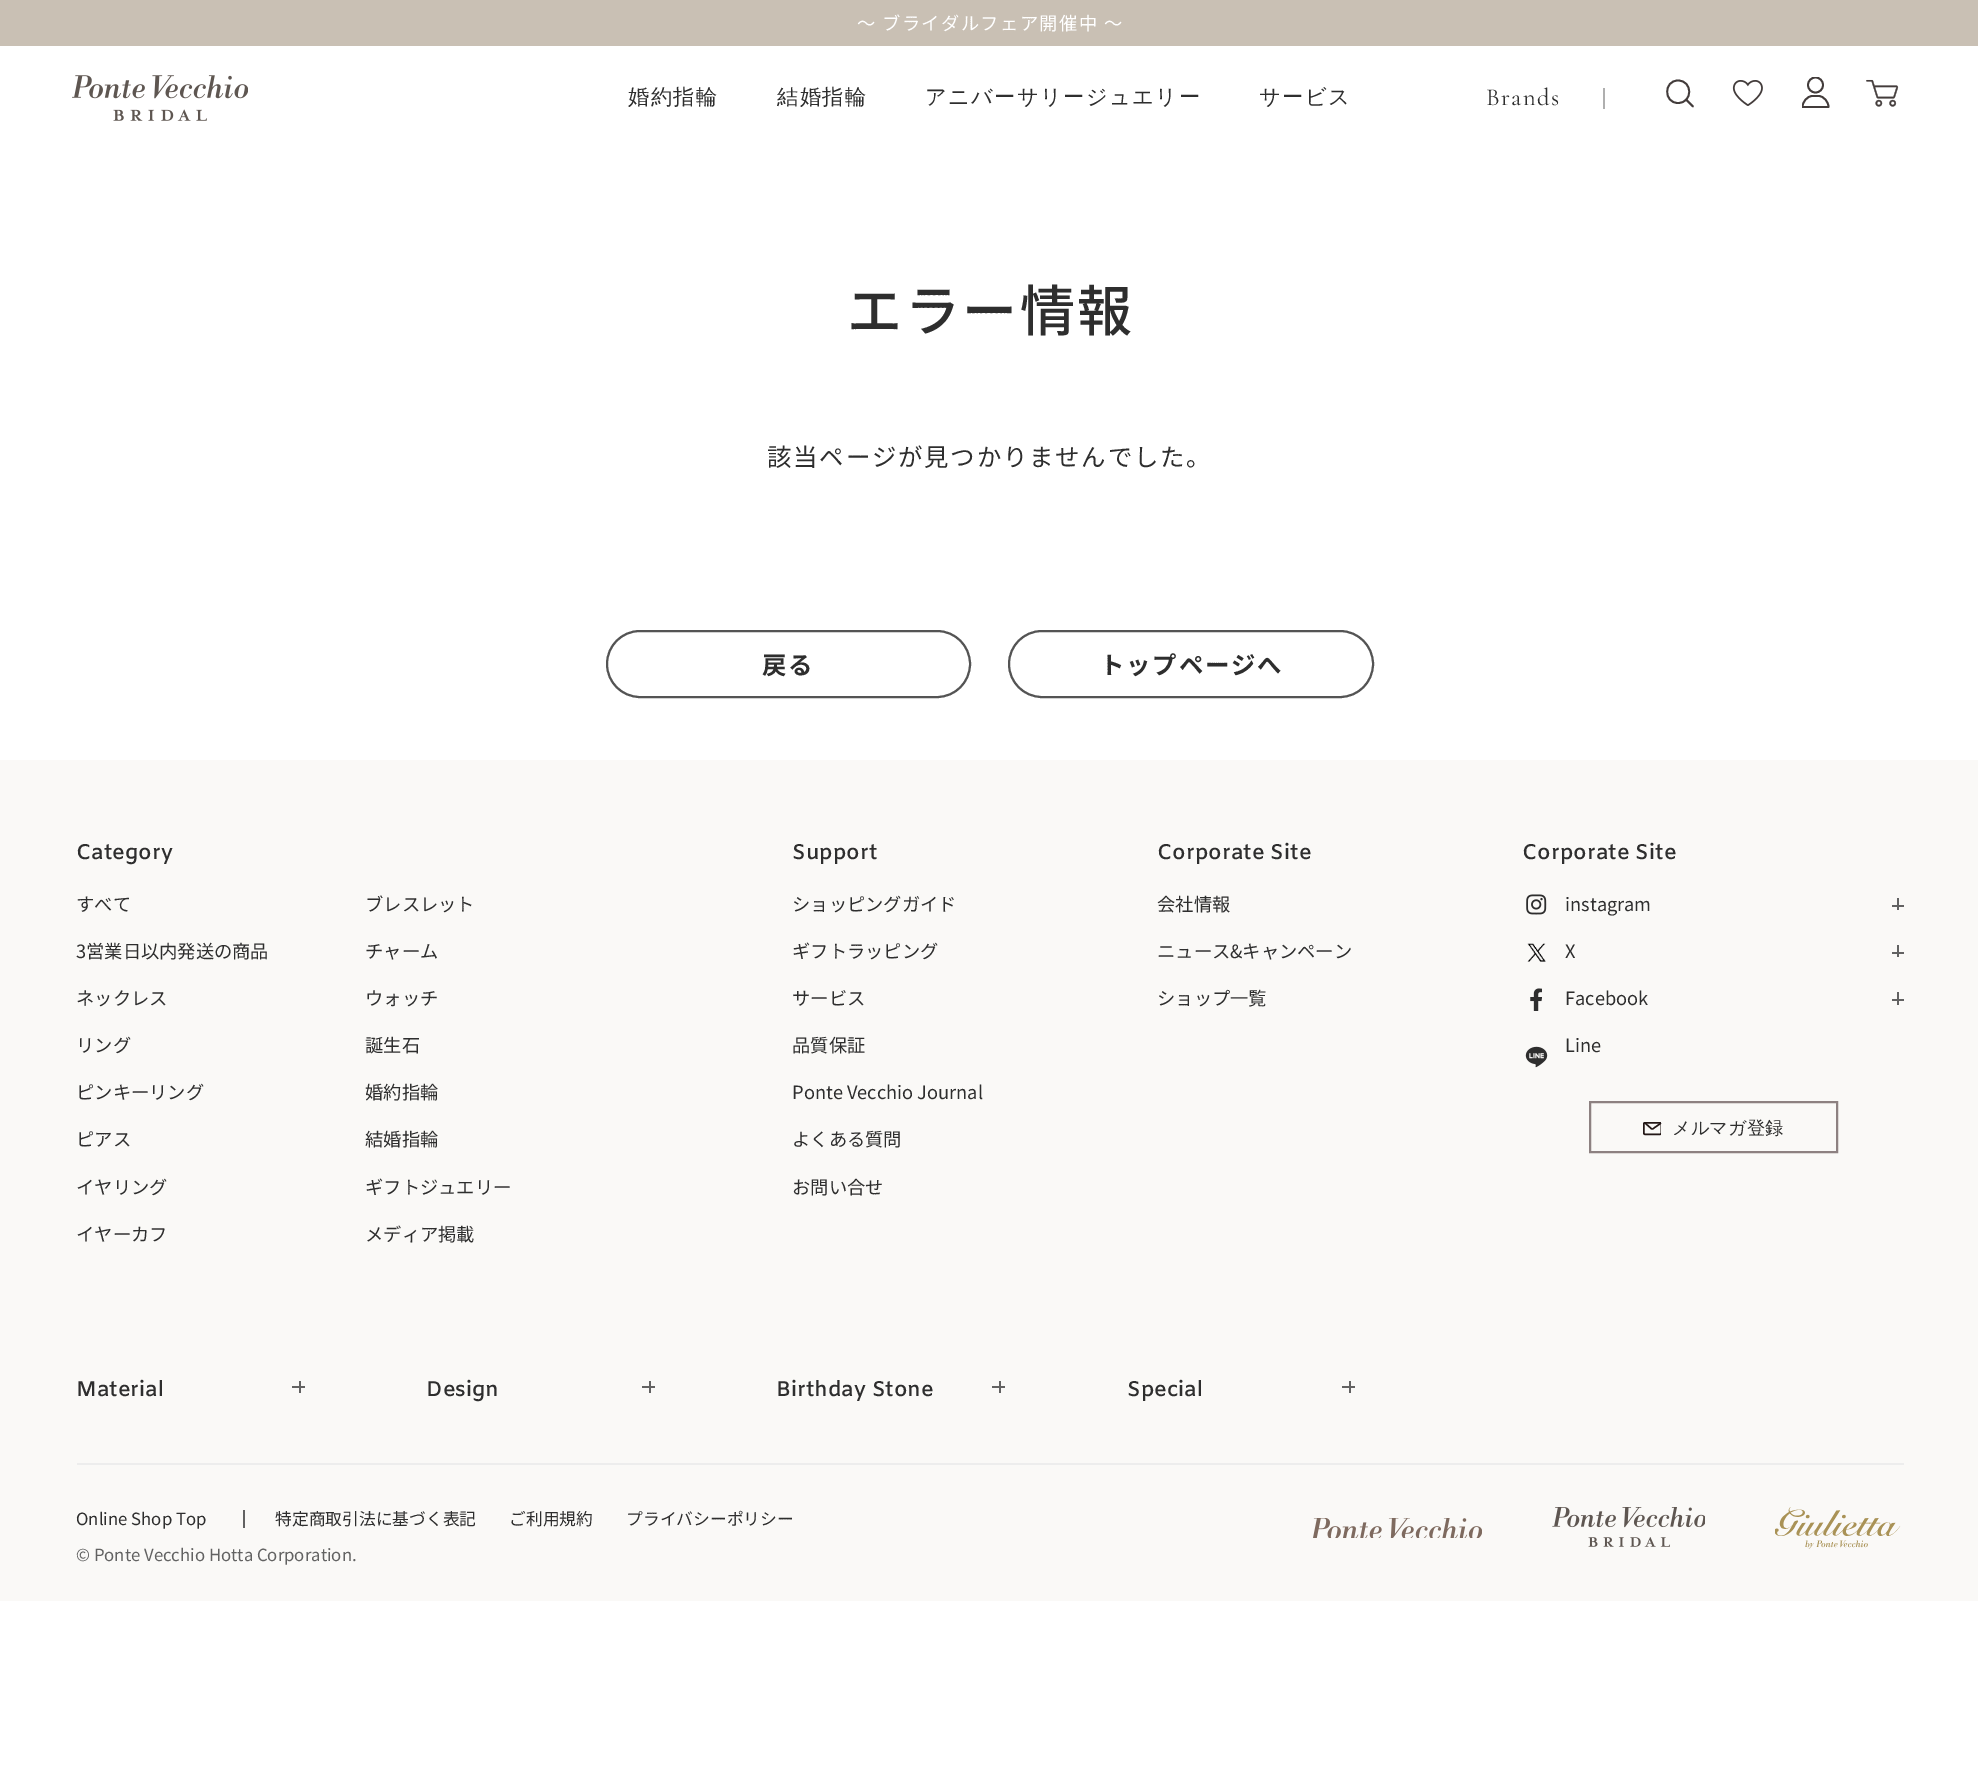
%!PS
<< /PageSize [1978 1768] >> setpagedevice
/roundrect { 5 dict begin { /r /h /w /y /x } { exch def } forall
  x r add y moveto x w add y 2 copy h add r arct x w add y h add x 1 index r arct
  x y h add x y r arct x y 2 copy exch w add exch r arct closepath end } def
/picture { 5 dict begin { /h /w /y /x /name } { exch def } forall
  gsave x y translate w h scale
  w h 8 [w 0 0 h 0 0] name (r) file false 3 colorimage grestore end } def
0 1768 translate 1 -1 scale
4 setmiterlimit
1 setgray
0 0 1978 1768 rectfill
0.788 0.753 0.706 setrgbcolor
0 0 1978 46 rectfill
/NotoSansJP-Regular [18.25 0 0 -18.25 0 0] selectfont
1 setgray
857 30 moveto 1.4 0 (～ ブライダルフェア開催中 ～) ashow
(img1.rgb) 72 75 176 46 picture
/WenQuanYiZenHei-Medium [21.25 0 0 -21.25 0 0] selectfont
0.18 setgray
628 104 moveto 1.4 0 (婚約指輪) ashow
777 104 moveto 1.4 0 (結婚指輪) ashow
925 104 moveto 1.4 0 (アニバーサリージュエリー) ashow
1259 104 moveto 1.4 0 (サービス) ashow
/CormorantGaramond-Regular [24.4 0 0 -24.4 0 0] selectfont
1486 105 moveto 1.4 0 (Brands) ashow
0.686 setgray
1603 88 2 21 rectfill
0.263 0.235 0.231 setrgbcolor
1.8 setlinewidth
1 setlinecap
newpath 1678 80.5 moveto 1693 80.5 1693 103 1678 103 curveto 1663.5 103 1663.5 80.5 1678 80.5 curveto closepath stroke
1 setlinejoin
newpath 1693 106.5 moveto 1686 99.5 lineto stroke
(img2.rgb) 1732 80 31 26 picture
gsave
newpath 1802 77 moveto 1829.5 77 lineto 1829.5 110.5 lineto 1802 110.5 lineto closepath clip newpath
0 setlinecap
0 setlinejoin
newpath 1815.5 85 7.5 0 360 arc closepath stroke
1 setlinecap
1 setlinejoin
newpath 1828.5 107 moveto 1802.5 107 lineto 1802.5 102 1807 96 1812.5 96 curveto 1818.5 96 lineto 1824 96 1828.5 102 1828.5 107 curveto closepath stroke
grestore
(img3.rgb) 1866 79 33 28 picture
/NotoSansJP-Medium [55 0 0 -55 0 0] selectfont
0.18 setgray
847 331 moveto 2.5 0 (エラー情報) ashow
/NotoSansJP-Regular [24.4 0 0 -24.4 0 0] selectfont
767 466 moveto 1.8 0 (該当ページが見つかりませんでした。) ashow
0.329 setgray
2 setlinewidth
0 setlinecap
0 setlinejoin
607 631 363 66 33 roundrect stroke
/NotoSansJP-Bold [24.4 0 0 -24.4 0 0] selectfont
0.18 setgray
762 674 moveto 1.8 0 (戻る) ashow
0.329 setgray
1009 631 364 66 33 roundrect stroke
0.18 setgray
1100 674 moveto 1.8 0 (トップページへ) ashow
0.98 0.976 0.969 setrgbcolor
0 760 1978 841 rectfill
0.929 setgray
77 1463 1827 2 rectfill
/Amiko-SemiBold [21.25 0 0 -21.25 0 0] selectfont
0.18 setgray
76 859 moveto (Category) show
/NotoSansJP-Regular [18.25 0 0 -18.25 0 0] selectfont
76 911 moveto (すべて) show
76 958 moveto (3営業日以内発送の商品) show
76 1005 moveto (ネックレス) show
76 1052 moveto (リング) show
76 1099 moveto (ピンキーリング) show
76 1146 moveto (ピアス) show
76 1194 moveto (イヤリング) show
76 1241 moveto (イヤーカフ) show
365 911 moveto (ブレスレット) show
365 958 moveto (チャーム) show
365 1005 moveto (ウォッチ) show
365 1052 moveto (誕生石) show
365 1099 moveto (婚約指輪) show
365 1146 moveto (結婚指輪) show
365 1194 moveto (ギフトジュエリー) show
365 1241 moveto (メディア掲載) show
/Amiko-SemiBold [21.25 0 0 -21.25 0 0] selectfont
792 859 moveto (Support) show
/NotoSansJP-Regular [18.25 0 0 -18.25 0 0] selectfont
792 911 moveto (ショッピングガイド) show
792 958 moveto (ギフトラッピング) show
792 1005 moveto (サービス) show
792 1052 moveto (品質保証) show
792 1099 moveto (Ponte Vecchio Journal) show
792 1146 moveto (よくある質問) show
792 1194 moveto (お問い合せ) show
/Amiko-SemiBold [21.25 0 0 -21.25 0 0] selectfont
1157 859 moveto (Corporate Site) show
/NotoSansJP-Regular [18.25 0 0 -18.25 0 0] selectfont
1157 911 moveto (会社情報) show
1157 958 moveto (ニュース&キャンペーン) show
1157 1005 moveto (ショップ一覧) show
/Amiko-SemiBold [21.25 0 0 -21.25 0 0] selectfont
1522 859 moveto (Corporate Site) show
(img4.rgb) 1526 894 21 21 picture
/NotoSansJP-Regular [18.25 0 0 -18.25 0 0] selectfont
1565 911 moveto (instagram) show
0.384 setgray
1892 905 12 2 rectfill
1897 898 2 12 rectfill
(img5.rgb) 1527 943 19 19 picture
0.18 setgray
1565 958 moveto (X) show
0.384 setgray
1892 952 12 2 rectfill
1897 945 2 12 rectfill
(img6.rgb) 1530 988 12 23 picture
0.18 setgray
1565 1005 moveto (Facebook) show
0.384 setgray
1892 999 12 2 rectfill
1897 992 2 13 rectfill
(img7.rgb) 1525 1046 23 22 picture
0.18 setgray
1565 1052 moveto (Line) show
0.553 0.506 0.506 setrgbcolor
1590 1102 247 50 rectstroke
gsave
1643 1122 18 14 rectclip
0.137 0.09 0.086 setrgbcolor
1.5 setlinewidth
1643.75 1122.75 17.5 11.5 1.25 roundrect stroke
grestore
0.137 0.09 0.086 setrgbcolor
1.4 setlinewidth
1 setlinecap
1 setlinejoin
newpath 1660.5 1123.5 moveto 1654 1128 lineto 1651.5 1130 1652 1129 1649.5 1127 curveto 1645 1123 lineto stroke
/WenQuanYiZenHei-Medium [18.25 0 0 -18.25 0 0] selectfont
0.18 setgray
1672 1134 moveto (メルマガ登録) show
/Amiko-SemiBold [21.25 0 0 -21.25 0 0] selectfont
76 1396 moveto (Material) show
0.384 setgray
292 1386 13 2 rectfill
299 1381 2 12 rectfill
0.18 setgray
426 1396 moveto (Design) show
0.384 setgray
642 1386 13 2 rectfill
649 1381 2 12 rectfill
0.18 setgray
776 1396 moveto (Birthday Stone) show
0.384 setgray
992 1386 13 2 rectfill
999 1381 2 12 rectfill
0.18 setgray
1127 1396 moveto (Special) show
0.384 setgray
1342 1386 13 2 rectfill
1349 1381 2 12 rectfill
243 1510 2 18 rectfill
/NotoSansJP-Regular [16.75 0 0 -16.75 0 0] selectfont
0.18 setgray
76 1525 moveto (Online Shop Top) show
275 1525 moveto (特定商取引法に基づく表記) show
509 1525 moveto (ご利用規約) show
626 1525 moveto (プライバシーポリシー) show
0.384 setgray
76 1561 moveto (© Ponte Vecchio Hotta Corporation.) show
(img8.rgb) 1313 1518 169 20 picture
(img9.rgb) 1552 1507 153 40 picture
(img10.rgb) 1775 1507 126 42 picture
showpage
